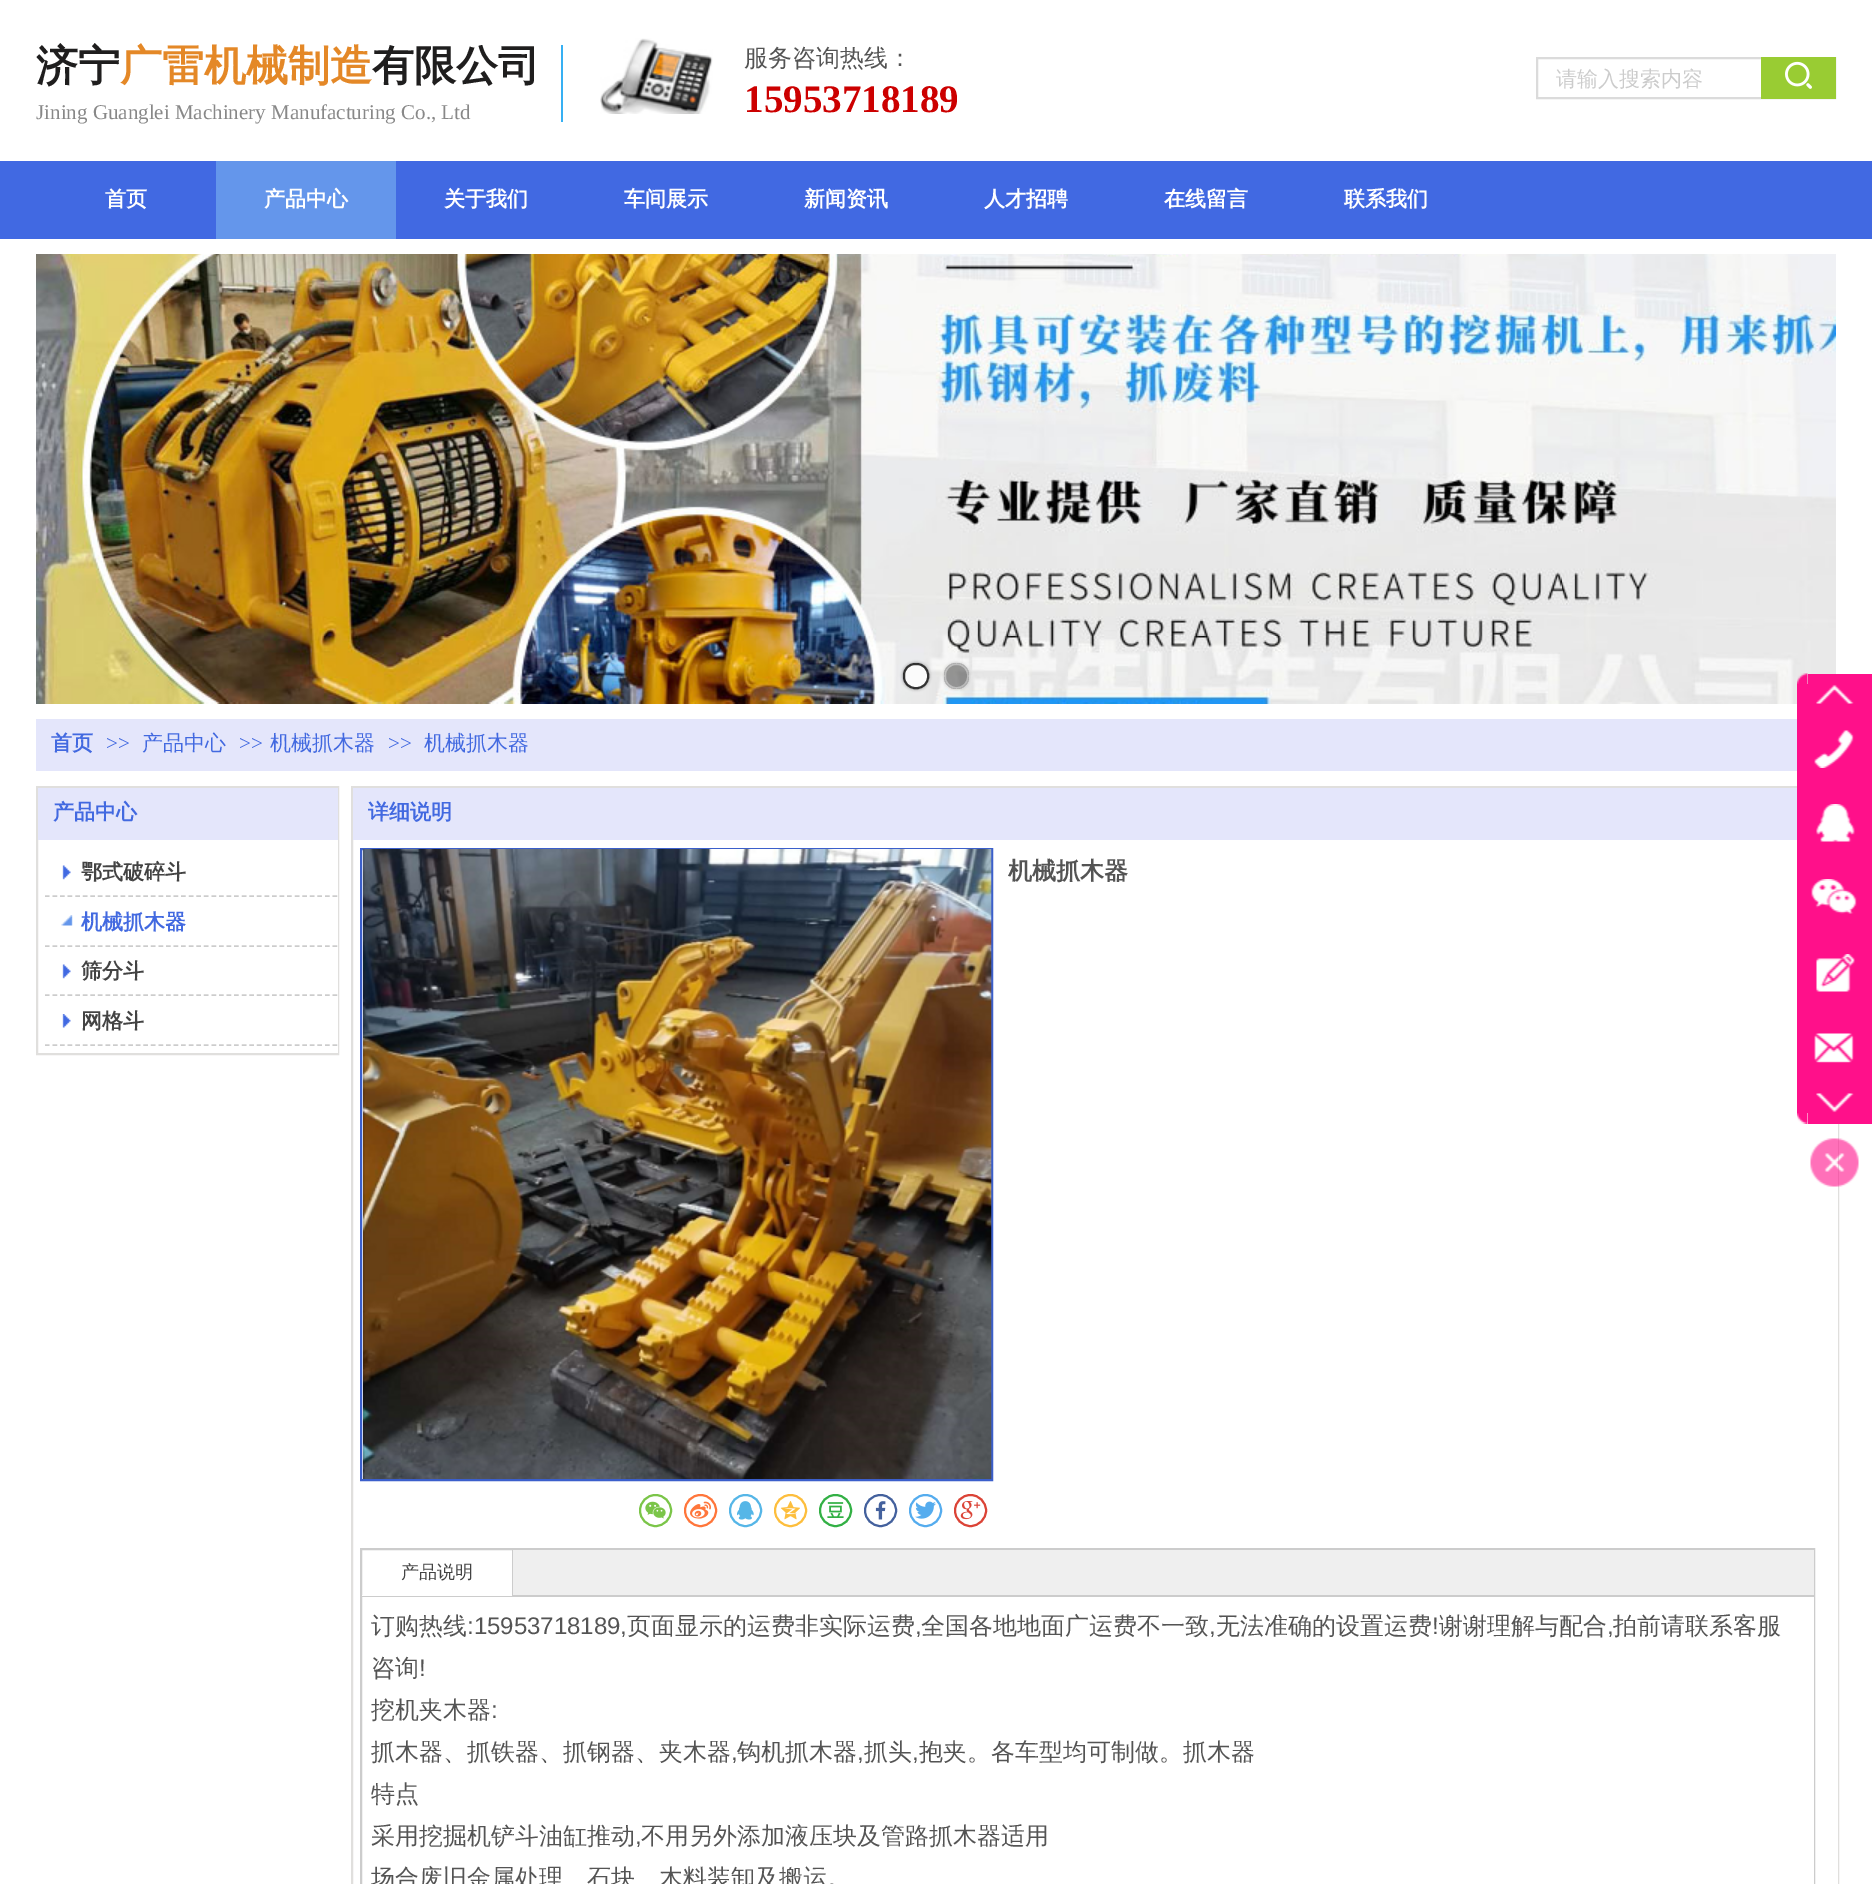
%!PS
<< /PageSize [1872 1884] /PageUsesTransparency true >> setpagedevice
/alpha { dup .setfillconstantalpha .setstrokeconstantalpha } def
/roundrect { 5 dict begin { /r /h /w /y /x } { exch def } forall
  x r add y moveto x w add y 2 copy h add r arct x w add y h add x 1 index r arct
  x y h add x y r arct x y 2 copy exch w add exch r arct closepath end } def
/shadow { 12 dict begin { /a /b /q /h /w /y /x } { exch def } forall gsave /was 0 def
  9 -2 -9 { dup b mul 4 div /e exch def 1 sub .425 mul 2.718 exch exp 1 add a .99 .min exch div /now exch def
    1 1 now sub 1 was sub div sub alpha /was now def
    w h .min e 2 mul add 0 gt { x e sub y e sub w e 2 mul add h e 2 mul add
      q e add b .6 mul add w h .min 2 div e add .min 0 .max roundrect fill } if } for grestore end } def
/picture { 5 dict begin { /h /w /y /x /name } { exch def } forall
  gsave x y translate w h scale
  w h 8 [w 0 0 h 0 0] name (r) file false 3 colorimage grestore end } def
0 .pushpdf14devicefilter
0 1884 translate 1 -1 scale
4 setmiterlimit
1 setgray
0 0 1872 1884 rectfill
/WenQuanYiZenHei-Bold [42 0 0 -42 0 0] selectfont
0.122 0.118 0.118 setrgbcolor
36 80 moveto (济宁) show
0.894 0.533 0.153 setrgbcolor
120 80 moveto (广雷机械制造) show
0.122 0.118 0.118 setrgbcolor
372 80 moveto (有限公司) show
0.212 0.69 0.953 setrgbcolor
561 45 2 77 rectfill
(img1.rgb) 600 38 113 76 picture
/WenQuanYiZenHei-Medium [24 0 0 -24 0 0] selectfont
0.329 setgray
744 66 moveto (服务咨询热线：) show
/LiberationSerif-Bold [39 0 0 -39 0 0] selectfont
0.8 0 0 setrgbcolor
744 112 moveto (15953718189) show
0.859 setgray
2 setlinewidth
1537 58 298 40 rectstroke
/WenQuanYiZenHei-Medium [21 0 0 -21 0 0] selectfont
0.8 setgray
1556 86 moveto (请输入搜索内容) show
0.6 0.8 0.2 setrgbcolor
1761 57 75 42 rectfill
(img2.rgb) 1785 61 27 28 picture
/LiberationSerif-Regular [21 0 0 -21 0 0] selectfont
0.533 setgray
36 119 moveto (Jining Guanglei Machinery Manufacturing Co., Ltd) show
0.255 0.412 0.886 setrgbcolor
0 161 1872 78 rectfill
/WenQuanYiZenHei-Bold [21 0 0 -21 0 0] selectfont
1 setgray
105 206 moveto (首页) show
0.392 0.588 0.922 setrgbcolor
216 161 180 78 rectfill
1 setgray
264 206 moveto (产品中心) show
444 206 moveto (关于我们) show
624 206 moveto (车间展示) show
804 206 moveto (新闻资讯) show
984 206 moveto (人才招聘) show
1164 206 moveto (在线留言) show
1344 206 moveto (联系我们) show
(img3.rgb) 36 254 1800 450 picture
gsave
newpath 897 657 moveto 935 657 lineto 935 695 lineto 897 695 lineto closepath 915 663 moveto 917 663 lineto 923.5 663 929 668.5 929 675 curveto 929 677 lineto 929 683.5 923.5 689 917 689 curveto 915 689 lineto 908.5 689 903 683.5 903 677 curveto 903 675 lineto 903 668.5 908.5 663 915 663 curveto closepath eoclip newpath
0 setgray
903 663 26 26 12 1.5 0.48 shadow
grestore
0.8 alpha
903 663 26 26 12 roundrect fill
0 setgray
904 664 24 24 11 roundrect stroke
gsave
newpath 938 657 moveto 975 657 lineto 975 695 lineto 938 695 lineto closepath 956 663 moveto 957 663 lineto 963.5 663 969 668.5 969 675 curveto 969 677 lineto 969 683.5 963.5 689 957 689 curveto 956 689 lineto 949.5 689 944 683.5 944 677 curveto 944 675 lineto 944 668.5 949.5 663 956 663 curveto closepath eoclip newpath
1 alpha
944 663 25 26 12 1.5 0.24 shadow
grestore
0.4 alpha
944 663 25 26 12 roundrect fill
1 setgray
945 664 23 24 11 roundrect stroke
1 alpha
0.894 0.902 0.984 setrgbcolor
36 719 1761 52 rectfill
0.259 0.412 0.878 setrgbcolor
51 750 moveto (首页) show
/LiberationSerif-Regular [21 0 0 -21 0 0] selectfont
106 750 moveto (>>) show
/WenQuanYiZenHei-Medium [21 0 0 -21 0 0] selectfont
142 750 moveto (产品中心) show
/LiberationSerif-Regular [21 0 0 -21 0 0] selectfont
239 750 moveto (>>) show
/WenQuanYiZenHei-Medium [21 0 0 -21 0 0] selectfont
270 750 moveto (机械抓木器) show
/LiberationSerif-Regular [21 0 0 -21 0 0] selectfont
388 750 moveto (>>) show
/WenQuanYiZenHei-Medium [21 0 0 -21 0 0] selectfont
424 750 moveto (机械抓木器) show
0.878 0.875 0.867 setrgbcolor
37 787 301 267 rectstroke
0.894 0.902 0.984 setrgbcolor
38 788 300 52 rectfill
/WenQuanYiZenHei-Bold [21 0 0 -21 0 0] selectfont
0.259 0.412 0.878 setrgbcolor
53 819 moveto (产品中心) show
1 setgray
337 840 1 213 rectfill
gsave
45 848 293 49 rectclip
0.8 setgray
1.5 setlinewidth
[4.5 3.07] 0 setdash
newpath 45 896 moveto 345 896 lineto stroke
grestore
(img4.rgb) 62 865 9 15 picture
0.263 setgray
81 879 moveto (鄂式破碎斗) show
gsave
45 897 293 50 rectclip
0.8 setgray
1.5 setlinewidth
[4.5 3.07] 0 setdash
newpath 45 946 moveto 345 946 lineto stroke
grestore
(img5.rgb) 61 915 12 11 picture
0.259 0.412 0.878 setrgbcolor
81 929 moveto (机械抓木器) show
gsave
45 947 293 49 rectclip
0.8 setgray
1.5 setlinewidth
[4.5 3.07] 0 setdash
newpath 45 995 moveto 345 995 lineto stroke
grestore
(img4.rgb) 62 964 9 15 picture
0.263 setgray
81 978 moveto (筛分斗) show
gsave
45 996 293 50 rectclip
0.8 setgray
1.5 setlinewidth
[4.5 3.07] 0 setdash
newpath 45 1045 moveto 345 1045 lineto stroke
grestore
(img6.rgb) 62 1014 9 14 picture
81 1028 moveto (网格斗) show
0.878 0.875 0.867 setrgbcolor
352 787 1486 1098 rectstroke
0.894 0.902 0.984 setrgbcolor
353 788 1444 52 rectfill
0.259 0.412 0.878 setrgbcolor
368 819 moveto (详细说明) show
1 setgray
1837 840 1 1044 rectfill
0.231 0.373 0.796 setrgbcolor
361 849 631 631 rectstroke
(img7.rgb) 363 849 629 630 picture
0.482 0.773 0.286 setrgbcolor
newpath 655.5 1510.5 15.5 0 360 arc closepath stroke
(img8.rgb) 645 1501 21 18 picture
1 0.463 0.231 setrgbcolor
newpath 700.5 1510.5 15.5 0 360 arc closepath stroke
(img9.rgb) 690 1501 21 18 picture
0.337 0.714 0.906 setrgbcolor
newpath 745.5 1510.5 15.5 0 360 arc closepath stroke
(img10.rgb) 737 1501 17 19 picture
0.992 0.745 0.239 setrgbcolor
newpath 790.5 1510.5 15.5 0 360 arc closepath stroke
(img11.rgb) 780 1501 20 19 picture
0.2 0.69 0.271 setrgbcolor
newpath 835.5 1510.5 15.5 0 360 arc closepath stroke
(img12.rgb) 827 1502 17 16 picture
0.267 0.38 0.616 setrgbcolor
newpath 880.5 1510.5 15.5 0 360 arc closepath stroke
(img13.rgb) 875 1501 11 19 picture
0.333 0.675 0.933 setrgbcolor
newpath 925.5 1510.5 15.5 0 360 arc closepath stroke
(img14.rgb) 915 1501 21 18 picture
0.859 0.267 0.216 setrgbcolor
newpath 970.5 1510.5 15.5 0 360 arc closepath stroke
(img15.rgb) 960 1501 21 19 picture
/WenQuanYiZenHei-Bold [24 0 0 -24 0 0] selectfont
0.329 setgray
1008 879 moveto (机械抓木器) show
0.8 setgray
361 1549 1453 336 rectstroke
0.937 setgray
513 1550 1301 45 rectfill
0.8 setgray
362 1595 1452 2 rectfill
1 setgray
362 1595 150 1 rectfill
0.8 setgray
512 1550 1 46 rectfill
/WenQuanYiZenHei-Medium [18 0 0 -18 0 0] selectfont
0.263 setgray
401 1578 moveto (产品说明) show
1 setgray
1813 1597 1 287 rectfill
/WenQuanYiZenHei-Medium [24 0 0 -24 0 0] selectfont
0.329 setgray
371 1634 moveto (订购热线) show
/LiberationSans-Regular [24 0 0 -24 0 0] selectfont
467 1634 moveto (:15953718189,) show
/WenQuanYiZenHei-Medium [24 0 0 -24 0 0] selectfont
627 1634 moveto (页面显示的运费非实际运费) show
/LiberationSans-Regular [24 0 0 -24 0 0] selectfont
915 1634 moveto (,) show
/WenQuanYiZenHei-Medium [24 0 0 -24 0 0] selectfont
921 1634 moveto (全国各地地面广运费不一致) show
/LiberationSans-Regular [24 0 0 -24 0 0] selectfont
1209 1634 moveto (,) show
/WenQuanYiZenHei-Medium [24 0 0 -24 0 0] selectfont
1216 1634 moveto (无法准确的设置运费) show
/LiberationSans-Regular [24 0 0 -24 0 0] selectfont
1432 1634 moveto (!) show
/WenQuanYiZenHei-Medium [24 0 0 -24 0 0] selectfont
1439 1634 moveto (谢谢理解与配合) show
/LiberationSans-Regular [24 0 0 -24 0 0] selectfont
1607 1634 moveto (,) show
/WenQuanYiZenHei-Medium [24 0 0 -24 0 0] selectfont
1613 1634 moveto (拍前请联系客服) show
371 1676 moveto (咨询) show
/LiberationSans-Regular [24 0 0 -24 0 0] selectfont
419 1676 moveto (!) show
/WenQuanYiZenHei-Medium [24 0 0 -24 0 0] selectfont
371 1718 moveto (挖机夹木器) show
/LiberationSans-Regular [24 0 0 -24 0 0] selectfont
491 1718 moveto (:) show
/WenQuanYiZenHei-Medium [24 0 0 -24 0 0] selectfont
371 1760 moveto (抓木器、抓铁器、抓钢器、夹木器) show
/LiberationSans-Regular [24 0 0 -24 0 0] selectfont
731 1760 moveto (,) show
/WenQuanYiZenHei-Medium [24 0 0 -24 0 0] selectfont
737 1760 moveto (钩机抓木器) show
/LiberationSans-Regular [24 0 0 -24 0 0] selectfont
857 1760 moveto (,) show
/WenQuanYiZenHei-Medium [24 0 0 -24 0 0] selectfont
864 1760 moveto (抓头) show
/LiberationSans-Regular [24 0 0 -24 0 0] selectfont
912 1760 moveto (,) show
/WenQuanYiZenHei-Medium [24 0 0 -24 0 0] selectfont
919 1760 moveto (抱夹。各车型均可制做。抓木器) show
371 1802 moveto (特点) show
371 1844 moveto (采用挖掘机铲斗油缸推动) show
/LiberationSans-Regular [24 0 0 -24 0 0] selectfont
635 1844 moveto (,) show
/WenQuanYiZenHei-Medium [24 0 0 -24 0 0] selectfont
641 1844 moveto (不用另外添加液压块及管路抓木器适用) show
371 1886 moveto (场合废旧金属处理、石块、木料装卸及搬运。) show
(img16.rgb) 1797 673 11 11 picture
1 0.063 0.541 setrgbcolor
1808 674 64 10 rectfill
1797 684 75 429 rectfill
(img17.rgb) 1816 684 38 20 picture
(img18.rgb) 1814 730 40 38 picture
(img19.rgb) 1816 804 39 38 picture
(img20.rgb) 1811 879 46 35 picture
(img21.rgb) 1816 954 39 38 picture
(img22.rgb) 1814 1033 40 30 picture
(img23.rgb) 1816 1093 38 20 picture
(img24.rgb) 1797 1113 11 11 picture
1808 1113 64 11 rectfill
(img25.rgb) 1810 1138 49 49 picture
.poppdf14devicefilter showpage
